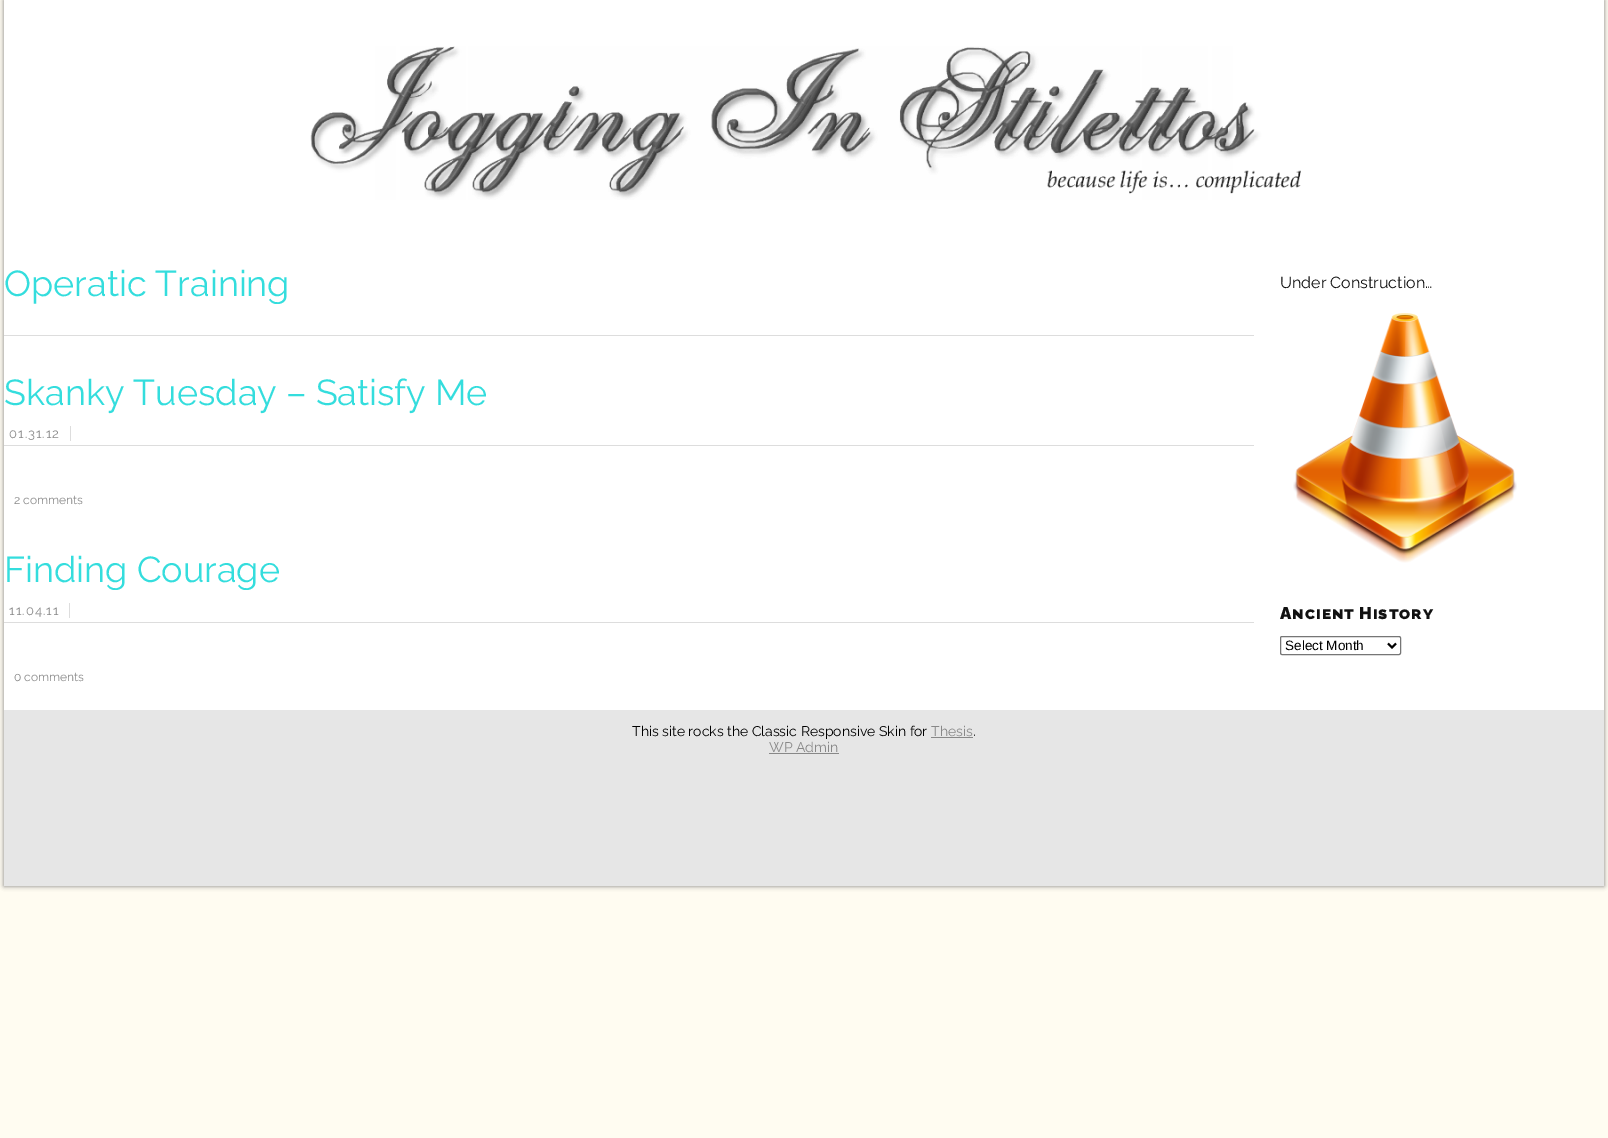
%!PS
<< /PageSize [1608 1138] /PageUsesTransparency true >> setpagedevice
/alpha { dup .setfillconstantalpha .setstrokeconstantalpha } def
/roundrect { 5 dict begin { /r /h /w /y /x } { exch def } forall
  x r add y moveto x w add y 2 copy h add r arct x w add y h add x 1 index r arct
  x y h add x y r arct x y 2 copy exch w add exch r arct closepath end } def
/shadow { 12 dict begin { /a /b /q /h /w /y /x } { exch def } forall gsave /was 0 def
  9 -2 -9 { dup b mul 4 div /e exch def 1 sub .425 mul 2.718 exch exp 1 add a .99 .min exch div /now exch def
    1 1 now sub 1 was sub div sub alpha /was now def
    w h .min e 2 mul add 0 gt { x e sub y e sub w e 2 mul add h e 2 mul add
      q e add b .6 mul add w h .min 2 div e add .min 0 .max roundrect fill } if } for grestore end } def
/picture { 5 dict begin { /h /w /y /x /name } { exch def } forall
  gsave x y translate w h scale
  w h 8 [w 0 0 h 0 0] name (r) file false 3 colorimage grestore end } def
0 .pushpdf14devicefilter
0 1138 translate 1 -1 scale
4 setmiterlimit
1 0.988 0.945 setrgbcolor
0 0 1608 1138 rectfill
0.502 setgray
4 0 1600 886 0 2.5 1 shadow
1 setgray
4 0 1600 710 rectfill
(img1.rgb) 310 46 991 154 picture
0.867 setgray
4 335 1250 1 rectfill
/Raleway-Regular [36 0 0 -36 0 0] selectfont
0.204 0.867 0.867 setrgbcolor
4 296 moveto (Operatic Training) show
4 405 moveto (Skanky Tuesday – Satisfy Me) show
0.867 setgray
4 445 1250 1 rectfill
/Raleway-Regular [13 0 0 -13 0 0] selectfont
0.533 setgray
9 438 moveto 1 0 (01.31.12) ashow
0.867 setgray
70 426 1 15 rectfill
/Raleway-Regular [12 0 0 -12 0 0] selectfont
0.533 setgray
14 504 moveto (2 comments) show
/Raleway-Regular [36 0 0 -36 0 0] selectfont
0.204 0.867 0.867 setrgbcolor
4 582 moveto (Finding Courage) show
0.867 setgray
4 622 1250 1 rectfill
/Raleway-Regular [13 0 0 -13 0 0] selectfont
0.533 setgray
9 615 moveto 1 0 (11.04.11) ashow
0.867 setgray
69 603 1 15 rectfill
/Raleway-Regular [12 0 0 -12 0 0] selectfont
0.533 setgray
14 681 moveto (0 comments) show
/Raleway-Regular [16 0 0 -16 0 0] selectfont
0.067 setgray
1280 288 moveto (Under Construction…) show
(img2.rgb) 1293 313 224 250 picture
/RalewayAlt-Black [17 0 0 -17 0 0] selectfont
1280 619 moveto -1 0 32 1 0 (Ancient History) awidthshow
0.463 setgray
1280.5 636.5 120 18 1.5 roundrect stroke
0 setgray
2 setlinewidth
newpath 1388 643.5 moveto 1392 647.5 lineto 1396 643.5 lineto stroke
/LiberationSans-Regular [13.5 0 0 -13.5 0 0] selectfont
1285 650 moveto (Select Month) show
0.902 setgray
4 710 1600 176 rectfill
/Raleway-Regular [14 0 0 -14 0 0] selectfont
0 setgray
632 736 moveto (This site rocks the Classic Responsive Skin for) show
0.533 setgray
931 736 moveto (Thesis) show
931 737 42 1 rectfill
0 setgray
973 736 moveto (.) show
0.533 setgray
769 752 moveto (WP Admin) show
769 753 70 1 rectfill
.poppdf14devicefilter showpage
